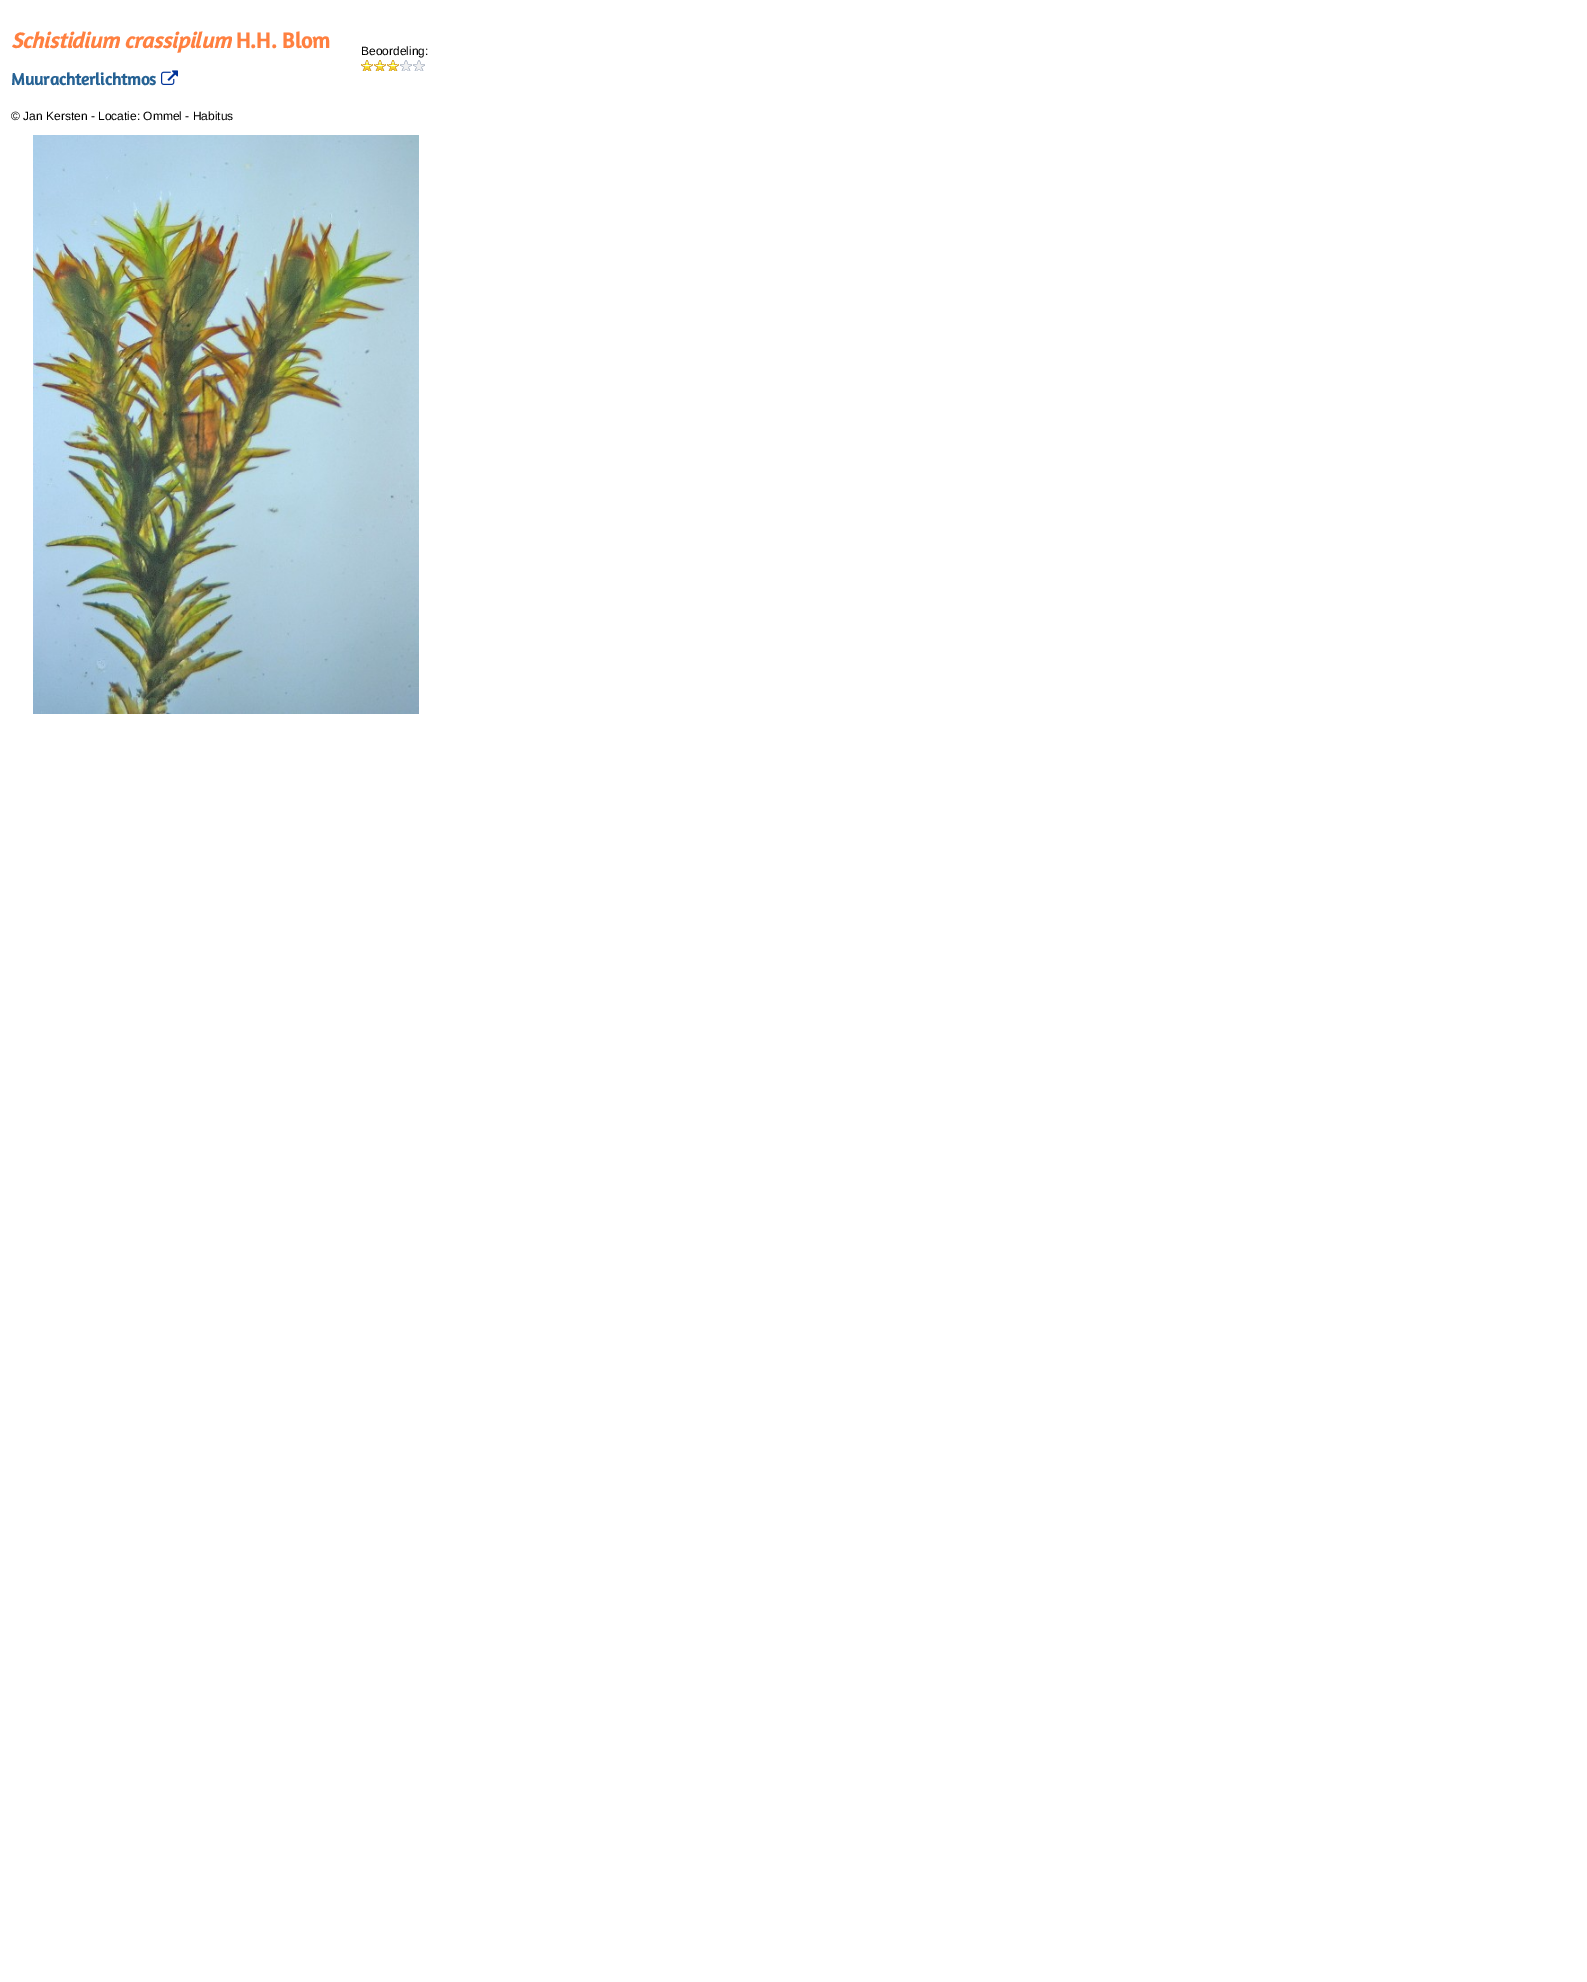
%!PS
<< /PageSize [1587 1982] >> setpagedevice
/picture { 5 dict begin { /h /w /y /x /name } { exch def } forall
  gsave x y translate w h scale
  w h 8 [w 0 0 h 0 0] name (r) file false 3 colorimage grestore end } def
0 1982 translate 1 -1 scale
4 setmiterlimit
1 setgray
0 0 1587 1982 rectfill
/Amaranth-BoldItalic [22 0 0 -22 0 0] selectfont
1 0.502 0.251 setrgbcolor
11 48 moveto (Schistidium crassipilum) show
/Amaranth-Bold [22 0 0 -22 0 0] selectfont
236 48 moveto (H.H. Blom) show
/Amaranth-Bold [17 0 0 -17 0 0] selectfont
0.149 0.384 0.58 setrgbcolor
11 85 moveto (Muurachterlichtmos) show
(img1.rgb) 161 70 17 15 picture
/LiberationSans-Regular [12 0 0 -12 0 0] selectfont
0 setgray
361 55 moveto (Beoordeling:) show
(img2.rgb) 361 60 12 11 picture
(img2.rgb) 374 60 12 11 picture
(img2.rgb) 387 60 12 11 picture
(img3.rgb) 400 60 12 11 picture
(img3.rgb) 413 60 12 11 picture
11 120 moveto (© Jan Kersten - Locatie: Ommel - Habitus) show
(img4.rgb) 33 135 386 579 picture
showpage
